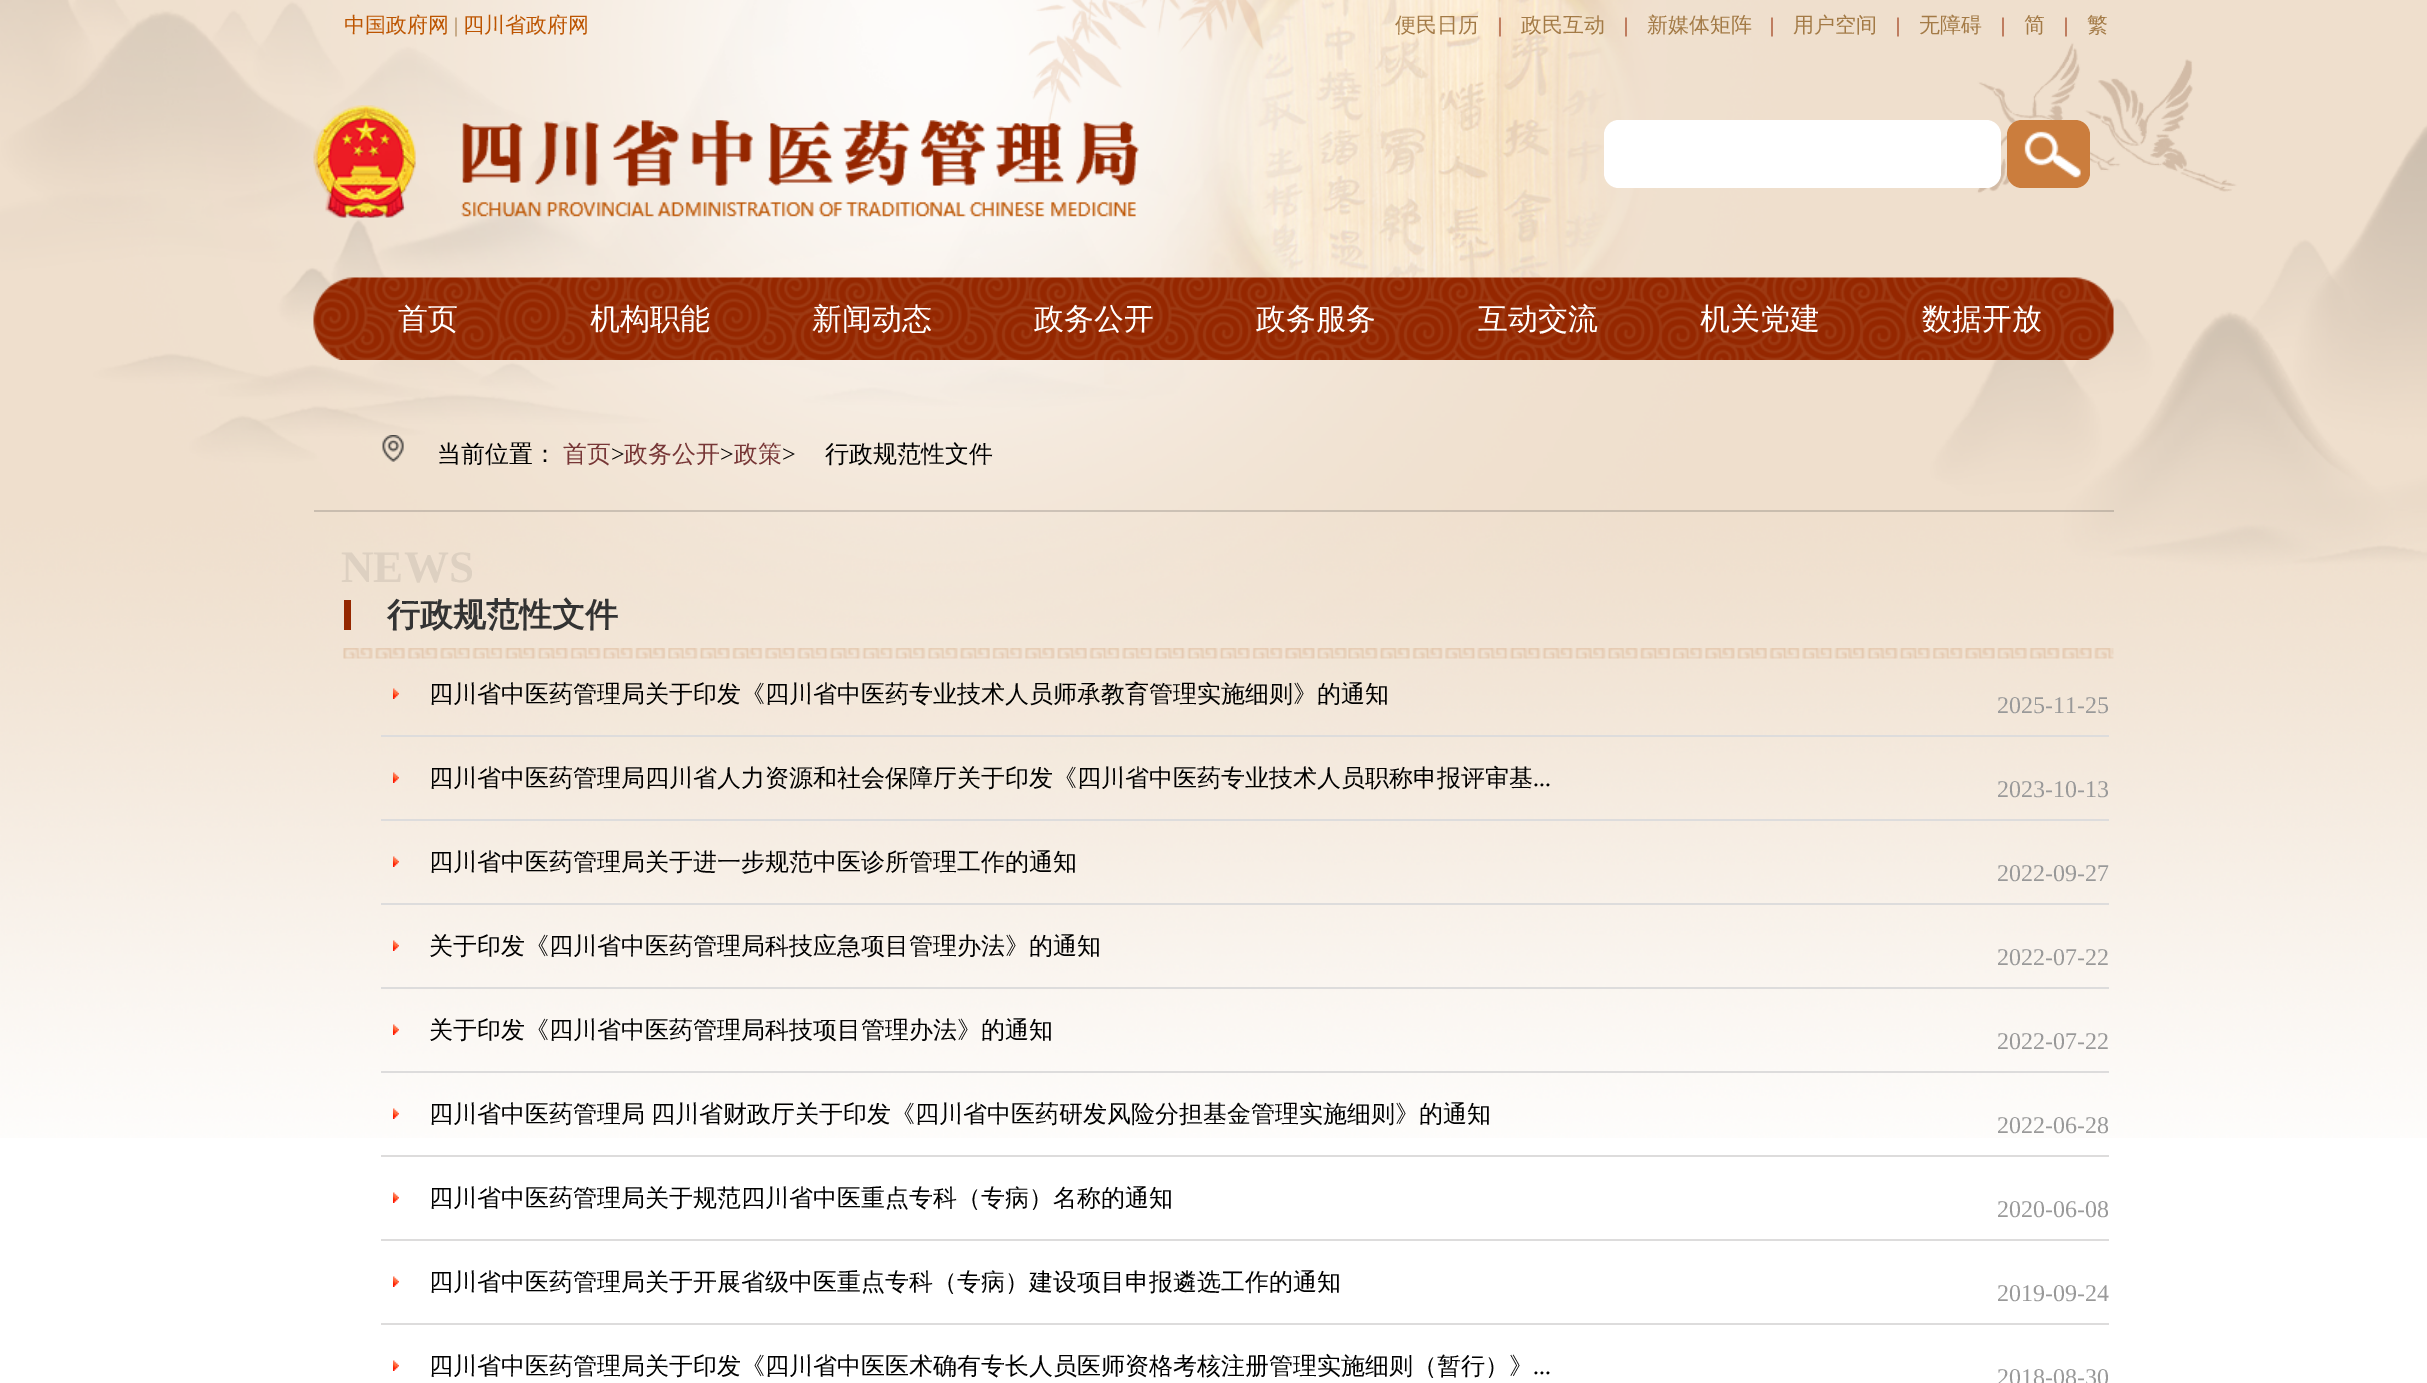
%!PS
<< /PageSize [2427 1383] /PageUsesTransparency true >> setpagedevice
/alpha { dup .setfillconstantalpha .setstrokeconstantalpha } def
/roundrect { 5 dict begin { /r /h /w /y /x } { exch def } forall
  x r add y moveto x w add y 2 copy h add r arct x w add y h add x 1 index r arct
  x y h add x y r arct x y 2 copy exch w add exch r arct closepath end } def
/picture { 5 dict begin { /h /w /y /x /name } { exch def } forall
  gsave x y translate w h scale
  w h 8 [w 0 0 h 0 0] name (r) file false 3 colorimage grestore end } def
0 .pushpdf14devicefilter
0 1383 translate 1 -1 scale
4 setmiterlimit
1 setgray
0 0 2427 1383 rectfill
(img1.rgb) 0 0 2427 1138 picture
/WenQuanYiZenHei-Medium [21 0 0 -21 0 0] selectfont
0.737 0.329 0 setrgbcolor
344 32 moveto (中国政府网) show
/LiberationSerif-Regular [21 0 0 -21 0 0] selectfont
0.639 0.478 0.275 setrgbcolor
454 32 moveto (|) show
/WenQuanYiZenHei-Medium [21 0 0 -21 0 0] selectfont
0.737 0.329 0 setrgbcolor
463 32 moveto (四川省政府网) show
0.639 0.478 0.275 setrgbcolor
1395 32 moveto (便民日历) show
/LiberationSerif-Regular [21 0 0 -21 0 0] selectfont
0.584 0.153 0 setrgbcolor
1498 32 moveto (|) show
/WenQuanYiZenHei-Medium [21 0 0 -21 0 0] selectfont
0.639 0.478 0.275 setrgbcolor
1521 32 moveto (政民互动) show
/LiberationSerif-Regular [21 0 0 -21 0 0] selectfont
0.584 0.153 0 setrgbcolor
1624 32 moveto (|) show
/WenQuanYiZenHei-Medium [21 0 0 -21 0 0] selectfont
0.639 0.478 0.275 setrgbcolor
1647 32 moveto (新媒体矩阵) show
/LiberationSerif-Regular [21 0 0 -21 0 0] selectfont
0.584 0.153 0 setrgbcolor
1770 32 moveto (|) show
/WenQuanYiZenHei-Medium [21 0 0 -21 0 0] selectfont
0.639 0.478 0.275 setrgbcolor
1793 32 moveto (用户空间) show
/LiberationSerif-Regular [21 0 0 -21 0 0] selectfont
0.584 0.153 0 setrgbcolor
1896 32 moveto (|) show
/WenQuanYiZenHei-Medium [21 0 0 -21 0 0] selectfont
0.639 0.478 0.275 setrgbcolor
1919 32 moveto (无障碍) show
/LiberationSerif-Regular [21 0 0 -21 0 0] selectfont
0.584 0.153 0 setrgbcolor
2001 32 moveto (|) show
/WenQuanYiZenHei-Medium [21 0 0 -21 0 0] selectfont
0.639 0.478 0.275 setrgbcolor
2024 32 moveto (简) show
/LiberationSerif-Regular [21 0 0 -21 0 0] selectfont
0.584 0.153 0 setrgbcolor
2064 32 moveto (|) show
/WenQuanYiZenHei-Medium [21 0 0 -21 0 0] selectfont
0.639 0.478 0.275 setrgbcolor
2087 32 moveto (繁) show
(img2.rgb) 313 105 826 113 picture
1 setgray
1604 120 397 68 15 roundrect fill
0.796 0.49 0.239 setrgbcolor
2007 120 83 68 15 roundrect fill
(img3.rgb) 2024 131 57 47 picture
(img4.rgb) 313 277 1801 83 picture
/WenQuanYiZenHei-Medium [30 0 0 -30 0 0] selectfont
1 setgray
398 329 moveto (首页) show
590 329 moveto (机构职能) show
812 329 moveto (新闻动态) show
1034 329 moveto (政务公开) show
1256 329 moveto (政务服务) show
1478 329 moveto (互动交流) show
1700 329 moveto (机关党建) show
1922 329 moveto (数据开放) show
0.2 alpha
0.2 setgray
314 510 1800 2 rectfill
1 alpha
(img5.rgb) 382 435 22 27 picture
/WenQuanYiZenHei-Medium [24 0 0 -24 0 0] selectfont
0 setgray
437 462 moveto (当前位置：) show
0.467 0.212 0.212 setrgbcolor
563 462 moveto (首页) show
/LiberationSerif-Regular [24 0 0 -24 0 0] selectfont
0 setgray
611 462 moveto (>) show
/WenQuanYiZenHei-Medium [24 0 0 -24 0 0] selectfont
0.467 0.212 0.212 setrgbcolor
624 462 moveto (政务公开) show
/LiberationSerif-Regular [24 0 0 -24 0 0] selectfont
0 setgray
720 462 moveto (>) show
/WenQuanYiZenHei-Medium [24 0 0 -24 0 0] selectfont
0.467 0.212 0.212 setrgbcolor
734 462 moveto (政策) show
/LiberationSerif-Regular [24 0 0 -24 0 0] selectfont
0 setgray
782 462 moveto (>) show
/WenQuanYiZenHei-Medium [24 0 0 -24 0 0] selectfont
825 462 moveto (行政规范性文件) show
/LiberationSerif-Bold [45 0 0 -45 0 0] selectfont
0.867 0.816 0.757 setrgbcolor
341 582 moveto (NEWS) show
0.584 0.153 0 setrgbcolor
344 600 7 30 rectfill
/WenQuanYiZenHei-Bold [33 0 0 -33 0 0] selectfont
0.2 setgray
387 626 moveto (行政规范性文件) show
(img6.rgb) 343 648 1771 11 picture
(img7.rgb) 393 688 6 11 picture
0.867 0.863 0.863 setrgbcolor
381 735 1728 2 rectfill
/WenQuanYiZenHei-Medium [24 0 0 -24 0 0] selectfont
0 setgray
429 702 moveto (四川省中医药管理局关于印发《四川省中医药专业技术人员师承教育管理实施细则》的通知) show
/LiberationSerif-Regular [24 0 0 -24 0 0] selectfont
0.6 setgray
1997 713 moveto (2025-11-25) show
(img8.rgb) 393 772 6 11 picture
0.867 0.863 0.863 setrgbcolor
381 819 1728 2 rectfill
/WenQuanYiZenHei-Medium [24 0 0 -24 0 0] selectfont
0 setgray
429 786 moveto (四川省中医药管理局四川省人力资源和社会保障厅关于印发《四川省中医药专业技术人员职称申报评审基) show
/LiberationSerif-Regular [24 0 0 -24 0 0] selectfont
1533 786 moveto (...) show
0.6 setgray
1997 797 moveto (2023-10-13) show
(img9.rgb) 393 856 6 11 picture
0.867 0.863 0.863 setrgbcolor
381 903 1728 2 rectfill
/WenQuanYiZenHei-Medium [24 0 0 -24 0 0] selectfont
0 setgray
429 870 moveto (四川省中医药管理局关于进一步规范中医诊所管理工作的通知) show
/LiberationSerif-Regular [24 0 0 -24 0 0] selectfont
0.6 setgray
1997 881 moveto (2022-09-27) show
(img10.rgb) 393 940 6 11 picture
0.867 0.863 0.863 setrgbcolor
381 987 1728 2 rectfill
/WenQuanYiZenHei-Medium [24 0 0 -24 0 0] selectfont
0 setgray
429 954 moveto (关于印发《四川省中医药管理局科技应急项目管理办法》的通知) show
/LiberationSerif-Regular [24 0 0 -24 0 0] selectfont
0.6 setgray
1997 965 moveto (2022-07-22) show
(img11.rgb) 393 1024 6 11 picture
0.867 0.863 0.863 setrgbcolor
381 1071 1728 2 rectfill
/WenQuanYiZenHei-Medium [24 0 0 -24 0 0] selectfont
0 setgray
429 1038 moveto (关于印发《四川省中医药管理局科技项目管理办法》的通知) show
/LiberationSerif-Regular [24 0 0 -24 0 0] selectfont
0.6 setgray
1997 1049 moveto (2022-07-22) show
(img12.rgb) 393 1108 6 11 picture
0.867 0.863 0.863 setrgbcolor
381 1155 1728 2 rectfill
/WenQuanYiZenHei-Medium [24 0 0 -24 0 0] selectfont
0 setgray
429 1122 moveto -1 0 32 (四川省中医药管理局 四川省财政厅关于印发《四川省中医药研发风险分担基金管理实施细则》的通知) widthshow
/LiberationSerif-Regular [24 0 0 -24 0 0] selectfont
0.6 setgray
1997 1133 moveto (2022-06-28) show
(img13.rgb) 393 1192 6 11 picture
0.867 0.863 0.863 setrgbcolor
381 1239 1728 2 rectfill
/WenQuanYiZenHei-Medium [24 0 0 -24 0 0] selectfont
0 setgray
429 1206 moveto (四川省中医药管理局关于规范四川省中医重点专科（专病）名称的通知) show
/LiberationSerif-Regular [24 0 0 -24 0 0] selectfont
0.6 setgray
1997 1217 moveto (2020-06-08) show
(img13.rgb) 393 1276 6 11 picture
0.867 0.863 0.863 setrgbcolor
381 1323 1728 2 rectfill
/WenQuanYiZenHei-Medium [24 0 0 -24 0 0] selectfont
0 setgray
429 1290 moveto (四川省中医药管理局关于开展省级中医重点专科（专病）建设项目申报遴选工作的通知) show
/LiberationSerif-Regular [24 0 0 -24 0 0] selectfont
0.6 setgray
1997 1301 moveto (2019-09-24) show
(img13.rgb) 393 1360 6 11 picture
/WenQuanYiZenHei-Medium [24 0 0 -24 0 0] selectfont
0 setgray
429 1374 moveto (四川省中医药管理局关于印发《四川省中医医术确有专长人员医师资格考核注册管理实施细则（暂行）》) show
/LiberationSerif-Regular [24 0 0 -24 0 0] selectfont
1533 1374 moveto (...) show
0.6 setgray
1997 1385 moveto (2018-08-30) show
.poppdf14devicefilter showpage
